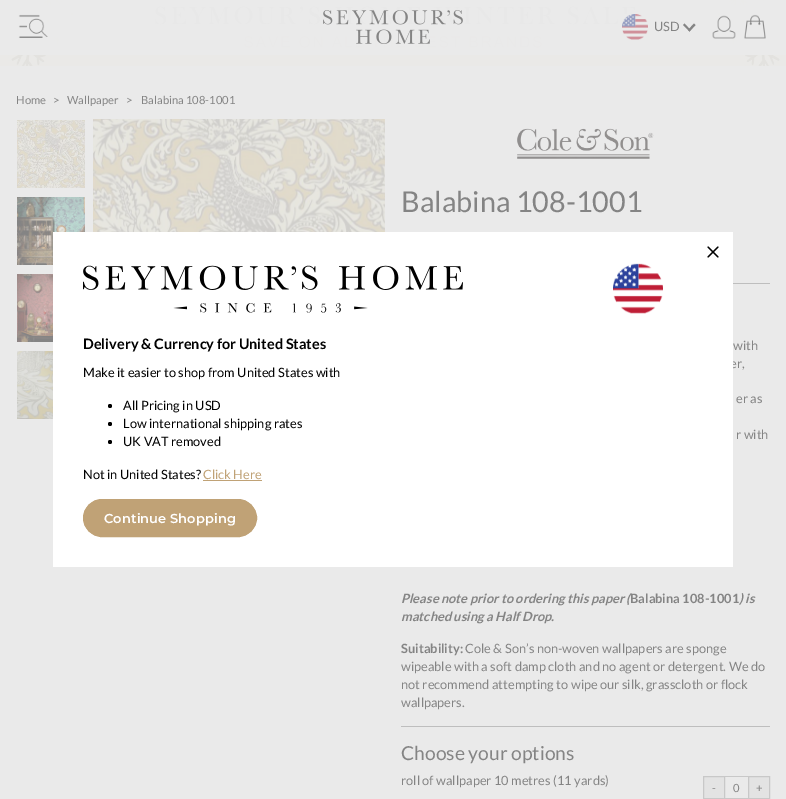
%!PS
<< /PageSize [786 799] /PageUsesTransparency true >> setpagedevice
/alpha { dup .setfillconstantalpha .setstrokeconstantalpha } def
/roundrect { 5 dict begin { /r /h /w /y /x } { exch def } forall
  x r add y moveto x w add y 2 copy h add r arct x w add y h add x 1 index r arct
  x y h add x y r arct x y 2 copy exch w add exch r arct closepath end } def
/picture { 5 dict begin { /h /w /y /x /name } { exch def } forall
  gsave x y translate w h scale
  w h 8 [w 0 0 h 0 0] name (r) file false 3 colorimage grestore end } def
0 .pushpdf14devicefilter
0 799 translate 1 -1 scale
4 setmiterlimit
0.918 setgray
0 0 786 799 rectfill
(img1.rgb) 0 0 786 66 picture
0.98 alpha
0 0 786 55 rectfill
1 alpha
(img2.rgb) 18 14 30 24 picture
(img3.rgb) 323 10 140 34 picture
(img4.rgb) 622 14 26 26 picture
/Lato-Regular [12.8 0 0 -12.8 0 0] selectfont
0.518 setgray
654 31 moveto (USD) show
newpath 694 23.5 moveto 695.5 25 lineto 689.5 31.5 lineto 688 30 lineto closepath fill
newpath 684.5 23.5 moveto 690.5 30 lineto 689.5 31.5 lineto 683 25 lineto closepath fill
(img5.rgb) 712 15 24 24 picture
(img6.rgb) 744 14 22 25 picture
/Lato-Regular [11.25 0 0 -11.25 0 0] selectfont
16 104 moveto (Home) show
53 104 moveto (>) show
67 104 moveto (Wallpaper) show
126 104 moveto (>) show
141 104 moveto (Balabina 108-1001) show
(img7.rgb) 17 120 68 68 picture
(img8.rgb) 17 197 68 68 picture
(img9.rgb) 17 274 36 68 picture
(img10.rgb) 17 351 36 68 picture
(img11.rgb) 93 119 292 113 picture
(img12.rgb) 517 128 137 31 picture
/Lato-Regular [28.75 0 0 -28.75 0 0] selectfont
401 212 moveto (Balabina 108-1001) show
0.745 setgray
733 283 37 1 rectfill
/Lato-Regular [12.8 0 0 -12.8 0 0] selectfont
0.518 setgray
733 350 moveto (with) show
730 368 moveto (er,) show
736 403 moveto (er as) show
736 439 moveto (r with) show
/Lato-BoldItalic [12.8 0 0 -12.8 0 0] selectfont
401 603 moveto (Please note prior to ordering this paper \() show
/Lato-Bold [12.8 0 0 -12.8 0 0] selectfont
630 603 moveto (Balabina 108-1001) show
/Lato-BoldItalic [12.8 0 0 -12.8 0 0] selectfont
739 603 moveto (\) is) show
401 621 moveto (matched using a Half Drop.) show
/Lato-Bold [12.8 0 0 -12.8 0 0] selectfont
401 653 moveto (Suitability:) show
/Lato-Regular [12.8 0 0 -12.8 0 0] selectfont
465 653 moveto (Cole & Son’s non-woven wallpapers are sponge) show
401 671 moveto (wipeable with a soft damp cloth and no agent or detergent. We do) show
401 689 moveto (not recommend attempting to wipe our silk, grasscloth or flock) show
401 707 moveto (wallpapers.) show
0.745 setgray
401 726 369 1 rectfill
/Lato-Regular [19.25 0 0 -19.25 0 0] selectfont
0.518 setgray
401 760 moveto (Choose your options) show
/Lato-Regular [12.8 0 0 -12.8 0 0] selectfont
401 785 moveto (roll of wallpaper 10 metres \(11 yards\)) show
0.89 setgray
newpath 703.5 776.5 moveto 724.5 776.5 lineto 724.5 798.5 lineto 703.5 798.5 lineto closepath gsave fill grestore
0.784 setgray
stroke
/Lato-Regular [11.25 0 0 -11.25 0 0] selectfont
0.518 setgray
712 792 moveto (-) show
0.784 setgray
725 776 23 1 rectfill
725 798 23 1 rectfill
0.518 setgray
733 792 moveto (0) show
0.89 setgray
newpath 748.5 776.5 moveto 769.5 776.5 lineto 769.5 798.5 lineto 748.5 798.5 lineto closepath gsave fill grestore
0.784 setgray
stroke
0.518 setgray
756 792 moveto (+) show
1 setgray
53 232 680 335 rectfill
0 setgray
1.2 setlinewidth
1 setlinecap
1 setlinejoin
newpath 708 257 moveto 718 247 lineto 708 247 moveto 718 257 lineto stroke
(img13.rgb) 83 265 380 48 picture
(img14.rgb) 613 263 50 51 picture
/Lato-Bold [14.4 0 0 -14.4 0 0] selectfont
83 349 moveto (Delivery & Currency for United States) show
/Lato-Regular [12.8 0 0 -12.8 0 0] selectfont
83 377 moveto (Make it easier to shop from United States with) show
newpath 110 406 2 0 360 arc closepath fill
123 410 moveto (All Pricing in USD) show
newpath 110 424 2 0 360 arc closepath fill
123 428 moveto (Low international shipping rates) show
newpath 110 442 2 0 360 arc closepath fill
123 446 moveto (UK VAT removed) show
83 479 moveto (Not in United States?) show
0.753 0.635 0.463 setrgbcolor
203 479 moveto (Click Here) show
203 480 59 1 rectfill
83.5 499.5 173 37 18.5 roundrect gsave fill grestore
1 setlinewidth
0 setlinecap
0 setlinejoin
stroke
/Montserrat-SemiBold [13 0 0 -13 0 0] selectfont
1 setgray
104 523 moveto 0.1 0 (Continue Shopping) ashow
.poppdf14devicefilter showpage
